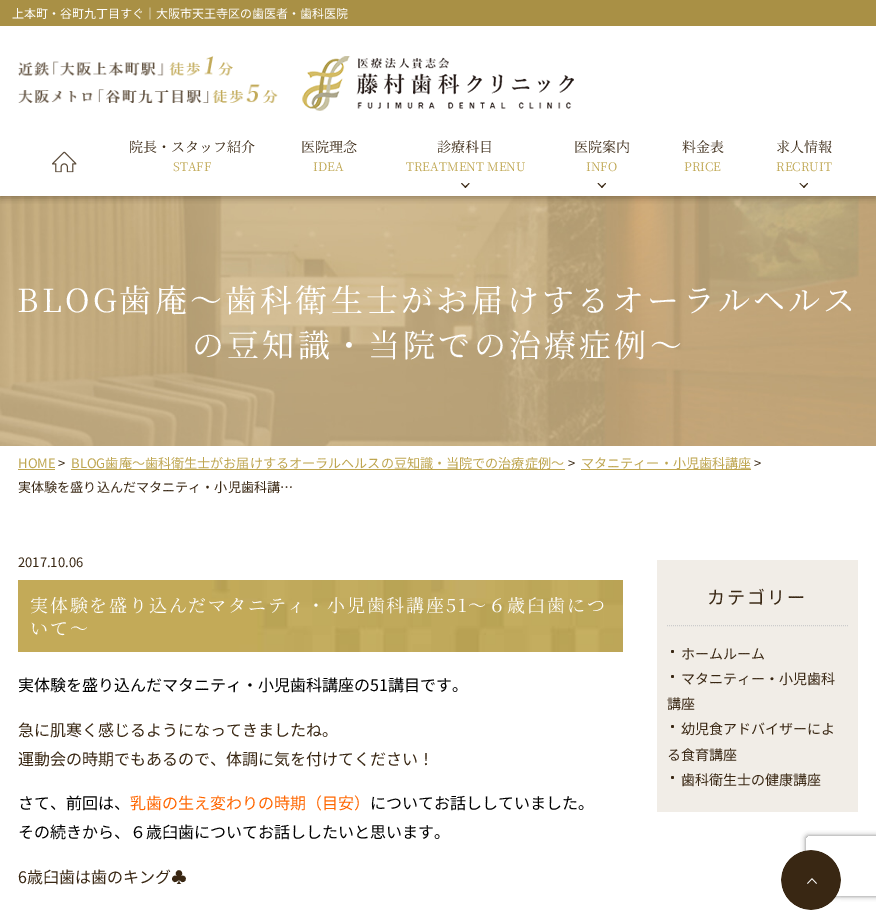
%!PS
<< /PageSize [876 910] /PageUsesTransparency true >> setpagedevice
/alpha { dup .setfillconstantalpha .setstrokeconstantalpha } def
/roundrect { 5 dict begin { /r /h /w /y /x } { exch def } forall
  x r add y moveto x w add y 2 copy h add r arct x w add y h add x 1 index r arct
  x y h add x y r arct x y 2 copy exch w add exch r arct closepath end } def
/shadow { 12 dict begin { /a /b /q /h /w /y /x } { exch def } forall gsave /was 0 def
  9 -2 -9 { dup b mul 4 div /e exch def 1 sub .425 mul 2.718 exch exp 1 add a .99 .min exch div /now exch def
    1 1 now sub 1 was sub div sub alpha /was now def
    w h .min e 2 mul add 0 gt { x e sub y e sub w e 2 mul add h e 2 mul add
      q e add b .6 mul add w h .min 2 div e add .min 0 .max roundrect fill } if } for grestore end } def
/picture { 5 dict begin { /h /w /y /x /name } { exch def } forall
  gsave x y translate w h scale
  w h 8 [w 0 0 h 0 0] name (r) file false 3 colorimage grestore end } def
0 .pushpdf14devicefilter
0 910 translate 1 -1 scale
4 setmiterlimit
1 setgray
0 0 876 910 rectfill
(img4.rgb) 0 196 876 250 picture
gsave
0 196 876 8 rectclip
0.224 0.153 0.075 setrgbcolor
0 2 876 196 0 3.5 0.4 shadow
grestore
0.663 0.565 0.271 setrgbcolor
0 0 876 26 rectfill
/NotoSansJP-Regular [12 0 0 -12 0 0] selectfont
1 setgray
12 18 moveto (上本町・谷町九丁目すぐ｜大阪市天王寺区の歯医者・歯科医院) show
(img1.rgb) 18 56 260 47 picture
(img2.rgb) 302 56 272 55 picture
(img3.rgb) 52 151 25 22 picture
/NotoSerifJP-Regular [14 0 0 -14 0 0] selectfont
0.224 0.153 0.075 setrgbcolor
129 152 moveto (院長・スタッフ紹介) show
/NotoSerifJP-Regular [12 0 0 -12 0 0] selectfont
0.745 0.647 0.31 setrgbcolor
173 171 moveto (STAFF) show
/NotoSerifJP-Regular [14 0 0 -14 0 0] selectfont
0.224 0.153 0.075 setrgbcolor
301 152 moveto (医院理念) show
/NotoSerifJP-Regular [12 0 0 -12 0 0] selectfont
0.745 0.647 0.31 setrgbcolor
313 171 moveto (IDEA) show
/NotoSerifJP-Regular [14 0 0 -14 0 0] selectfont
0.224 0.153 0.075 setrgbcolor
437 152 moveto (診療科目) show
/NotoSerifJP-Regular [12 0 0 -12 0 0] selectfont
0.745 0.647 0.31 setrgbcolor
406 171 moveto (TREATMENT MENU) show
0.224 0.153 0.075 setrgbcolor
newpath 469 183 moveto 469.5 183.5 lineto 465.5 188 lineto 464.5 187 lineto closepath fill
newpath 462 183 moveto 466 187 lineto 465.5 188 lineto 461 183.5 lineto closepath fill
/NotoSerifJP-Regular [14 0 0 -14 0 0] selectfont
574 152 moveto (医院案内) show
/NotoSerifJP-Regular [12 0 0 -12 0 0] selectfont
0.745 0.647 0.31 setrgbcolor
586 171 moveto (INFO) show
0.224 0.153 0.075 setrgbcolor
newpath 605.5 183 moveto 606 183.5 lineto 602 188 lineto 601 187 lineto closepath fill
newpath 598.5 183 moveto 602.5 187 lineto 602 188 lineto 597.5 183.5 lineto closepath fill
/NotoSerifJP-Regular [14 0 0 -14 0 0] selectfont
682 152 moveto (料金表) show
/NotoSerifJP-Regular [12 0 0 -12 0 0] selectfont
0.745 0.647 0.31 setrgbcolor
684 171 moveto (PRICE) show
/NotoSerifJP-Regular [14 0 0 -14 0 0] selectfont
0.224 0.153 0.075 setrgbcolor
776 152 moveto (求人情報) show
/NotoSerifJP-Regular [12 0 0 -12 0 0] selectfont
0.745 0.647 0.31 setrgbcolor
776 171 moveto (RECRUIT) show
0.224 0.153 0.075 setrgbcolor
newpath 807.5 183 moveto 808 183.5 lineto 804 188 lineto 803 187 lineto closepath fill
newpath 800 183 moveto 804.5 187 lineto 804 188 lineto 799.5 183.5 lineto closepath fill
/NotoSerifJP-Regular [32 0 0 -32 0 0] selectfont
1 setgray
17 312 moveto 3.2 0 (BLOG歯庵～歯科衛生士がお届けするオーラルヘルス) ashow
192 357 moveto 3.2 0 (の豆知識・当院での治療症例～) ashow
/NotoSansJP-Regular [13.1 0 0 -13.1 0 0] selectfont
0.745 0.647 0.31 setrgbcolor
18 468 moveto (HOME) show
18 469 37 1 rectfill
0.224 0.153 0.075 setrgbcolor
58 468 moveto (>) show
0.745 0.647 0.31 setrgbcolor
71 469 494 1 rectfill
71 468 moveto (BLOG歯庵～歯科衛生士がお届けするオーラルヘルスの豆知識・当院での治療症例～) show
0.224 0.153 0.075 setrgbcolor
568 468 moveto (>) show
0.745 0.647 0.31 setrgbcolor
581 469 170 1 rectfill
581 468 moveto (マタニティー・小児歯科講座) show
0.224 0.153 0.075 setrgbcolor
754 468 moveto (>) show
18 492 moveto (実体験を盛り込んだマタニティ・小児歯科講…) show
/NotoSansJP-Regular [13 0 0 -13 0 0] selectfont
18 567 moveto (2017.10.06) show
(img5.rgb) 18 580 605 72 picture
/NotoSerifJP-Regular [18 0 0 -18 0 0] selectfont
1 setgray
30 612 moveto 1.8 0 (実体験を盛り込んだマタニティ・小児歯科講座51～６歳臼歯につ) ashow
30 635 moveto 1.8 0 (いて～) ashow
/NotoSansJP-Regular [16 0 0 -16 0 0] selectfont
0 setgray
18 691 moveto (実体験を盛り込んだマタニティ・小児歯科講座の51講目です。) show
0.224 0.153 0.075 setrgbcolor
18 736 moveto (急に肌寒く感じるようになってきましたね。) show
18 765 moveto (運動会の時期でもあるので、体調に気を付けてください！) show
0 setgray
18 809 moveto (さて、前回は、) show
1 0.4 0 setrgbcolor
130 809 moveto (乳歯の生え変わりの時期（目安）) show
0 setgray
370 809 moveto (についてお話ししていました。) show
18 838 moveto (その続きから、６歳臼歯についてお話ししたいと思います。) show
0.224 0.153 0.075 setrgbcolor
18 883 moveto (6歳臼歯は歯のキング♣) show
0.945 0.929 0.906 setrgbcolor
657 560 201 252 rectfill
0.8 setgray
[1 1] 0 setdash
newpath 667 625.5 moveto 848 625.5 lineto stroke
/NotoSansJP-Regular [18 0 0 -18 0 0] selectfont
0.224 0.153 0.075 setrgbcolor
707 604 moveto 2 0 (カテゴリー) ashow
newpath 672.5 651.5 1.5 0 360 arc closepath fill
/NotoSansJP-Regular [14 0 0 -14 0 0] selectfont
681 659 moveto (ホームルーム) show
newpath 672.5 676.5 1.5 0 360 arc closepath fill
681 684 moveto (マタニティー・小児歯科) show
667 709 moveto (講座) show
newpath 672.5 726.5 1.5 0 360 arc closepath fill
681 734 moveto (幼児食アドバイザーによ) show
667 760 moveto (る食育講座) show
newpath 672.5 777.5 1.5 0 360 arc closepath fill
681 785 moveto (歯科衛生士の健康講座) show
gsave
newpath 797 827 moveto 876 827 lineto 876 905 lineto 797 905 lineto closepath 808 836 moveto 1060 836 lineto 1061 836 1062 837 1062 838 curveto 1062 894 lineto 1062 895 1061 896 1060 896 curveto 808 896 lineto 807 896 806 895 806 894 curveto 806 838 lineto 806 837 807 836 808 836 curveto closepath eoclip newpath
0.502 setgray
806 836 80 60 2 2.5 1 shadow
grestore
(img6.rgb) 781 850 60 60 picture
.poppdf14devicefilter showpage
